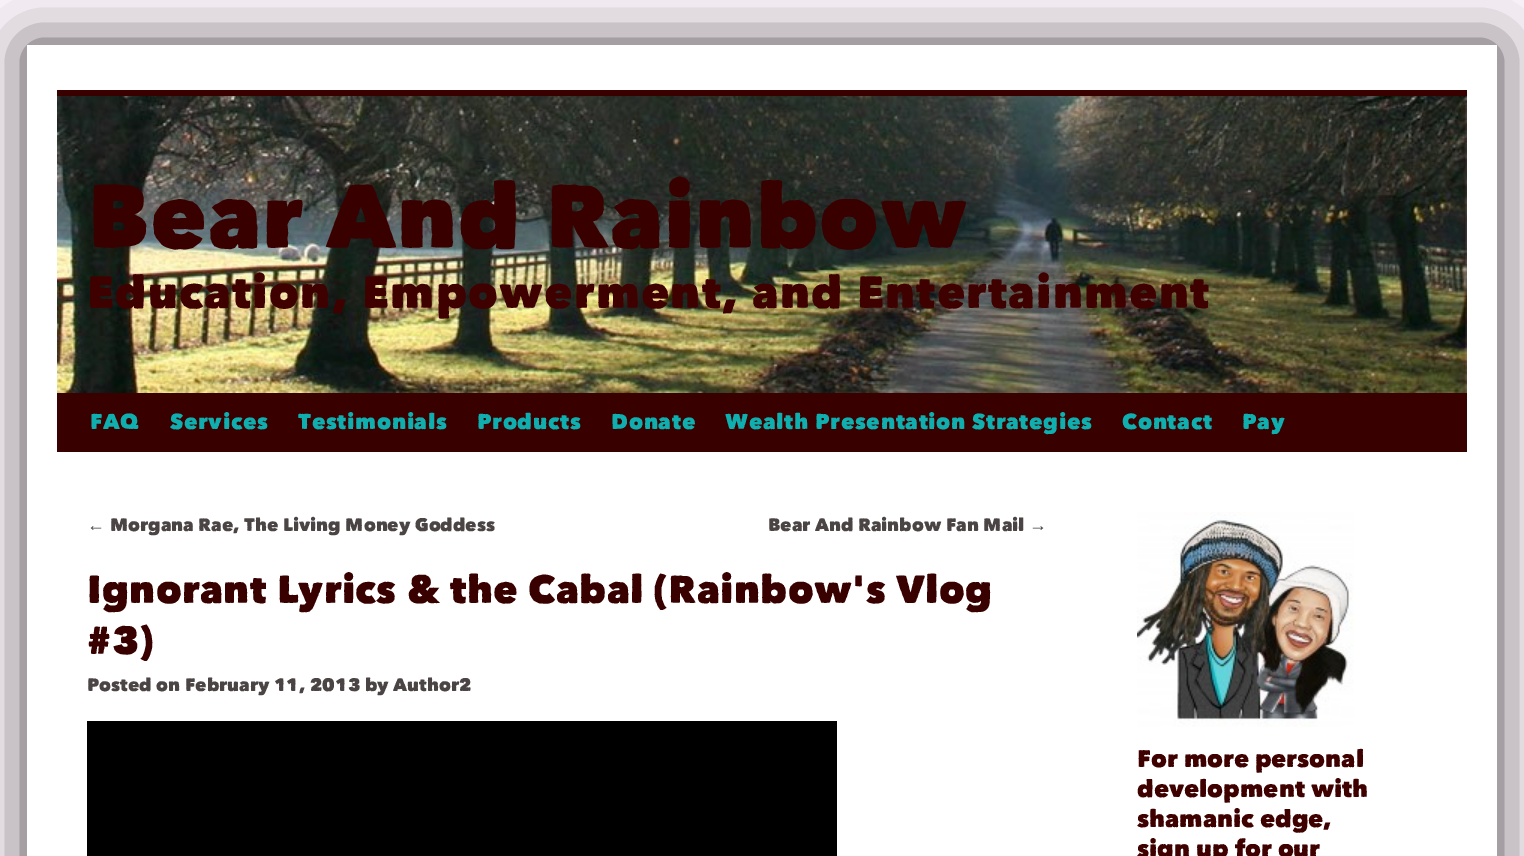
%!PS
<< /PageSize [1524 856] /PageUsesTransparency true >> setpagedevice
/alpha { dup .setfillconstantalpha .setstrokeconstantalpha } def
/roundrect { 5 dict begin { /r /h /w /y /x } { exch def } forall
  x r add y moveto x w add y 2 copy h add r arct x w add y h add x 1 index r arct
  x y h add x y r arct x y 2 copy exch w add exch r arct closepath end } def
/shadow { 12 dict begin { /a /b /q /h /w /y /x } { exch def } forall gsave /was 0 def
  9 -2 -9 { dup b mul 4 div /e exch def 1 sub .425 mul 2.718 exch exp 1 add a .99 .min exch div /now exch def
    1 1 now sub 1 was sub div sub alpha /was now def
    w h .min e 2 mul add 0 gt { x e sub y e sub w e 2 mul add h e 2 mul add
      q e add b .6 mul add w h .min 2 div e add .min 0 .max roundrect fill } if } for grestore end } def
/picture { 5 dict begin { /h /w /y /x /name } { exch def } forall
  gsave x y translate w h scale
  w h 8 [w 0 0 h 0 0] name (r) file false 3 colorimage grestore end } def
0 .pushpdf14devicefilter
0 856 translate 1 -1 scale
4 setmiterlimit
0.992 0.969 0.992 setrgbcolor
0 0 1524 856 rectfill
0.294 0.267 0.267 setrgbcolor
27 45 1470 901 0 30 1 shadow
1 setgray
27 45 1470 811 rectfill
0.224 0 0 setrgbcolor
57 90 1410 6 rectfill
57 393 1410 59 rectfill
(img1.rgb) 57 96 1410 297 picture
/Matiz-Black [90 0 0 -90 0 0] selectfont
87 248 moveto 0.9 0 (Bear And Rainbow) ashow
/Matiz-Black [45 0 0 -45 0 0] selectfont
0.247 0 0 setrgbcolor
87 308 moveto 1.35 0 (Education, Empowerment, and Entertainment) ashow
/Matiz-Black [21.5 0 0 -21.5 0 0] selectfont
0.059 0.686 0.686 setrgbcolor
90 429 moveto 0.65 0 (FAQ) ashow
170 429 moveto 0.65 0 (Services) ashow
298 429 moveto 0.65 0 (Testimonials) ashow
477 429 moveto 0.65 0 (Products) ashow
611 429 moveto 0.65 0 (Donate) ashow
725 429 moveto 0.65 0 (Wealth Presentation Strategies) ashow
1122 429 moveto 0.65 0 (Contact) ashow
1242 429 moveto 0.65 0 (Pay) ashow
/LiberationSans-Regular [18 0 0 -18 0 0] selectfont
0.294 0.267 0.267 setrgbcolor
87 531 moveto (←) show
/Matiz-Black [18 0 0 -18 0 0] selectfont
110 531 moveto (Morgana Rae, The Living Money Goddess) show
768 531 moveto (Bear And Rainbow Fan Mail) show
/LiberationSans-Regular [18 0 0 -18 0 0] selectfont
1029 531 moveto (→) show
/Matiz-Black [39 0 0 -39 0 0] selectfont
0.224 0 0 setrgbcolor
87 603 moveto 0.4 0 (Ignorant Lyrics & the Cabal \(Rainbow’s Vlog) ashow
87 654 moveto 0.4 0 (#3\)) ashow
/Matiz-Black [18 0 0 -18 0 0] selectfont
0.294 0.267 0.267 setrgbcolor
87 691 moveto (Posted on February 11, 2013 by Author2) show
0 setgray
87 721 750 135 rectfill
(img2.rgb) 1137 512 217 215 picture
/Matiz-Black [24 0 0 -24 0 0] selectfont
0.247 0 0 setrgbcolor
1137 767 moveto (For more personal) show
1137 797 moveto (development with) show
1137 827 moveto (shamanic edge,) show
1137 857 moveto (sign up for our) show
.poppdf14devicefilter showpage
